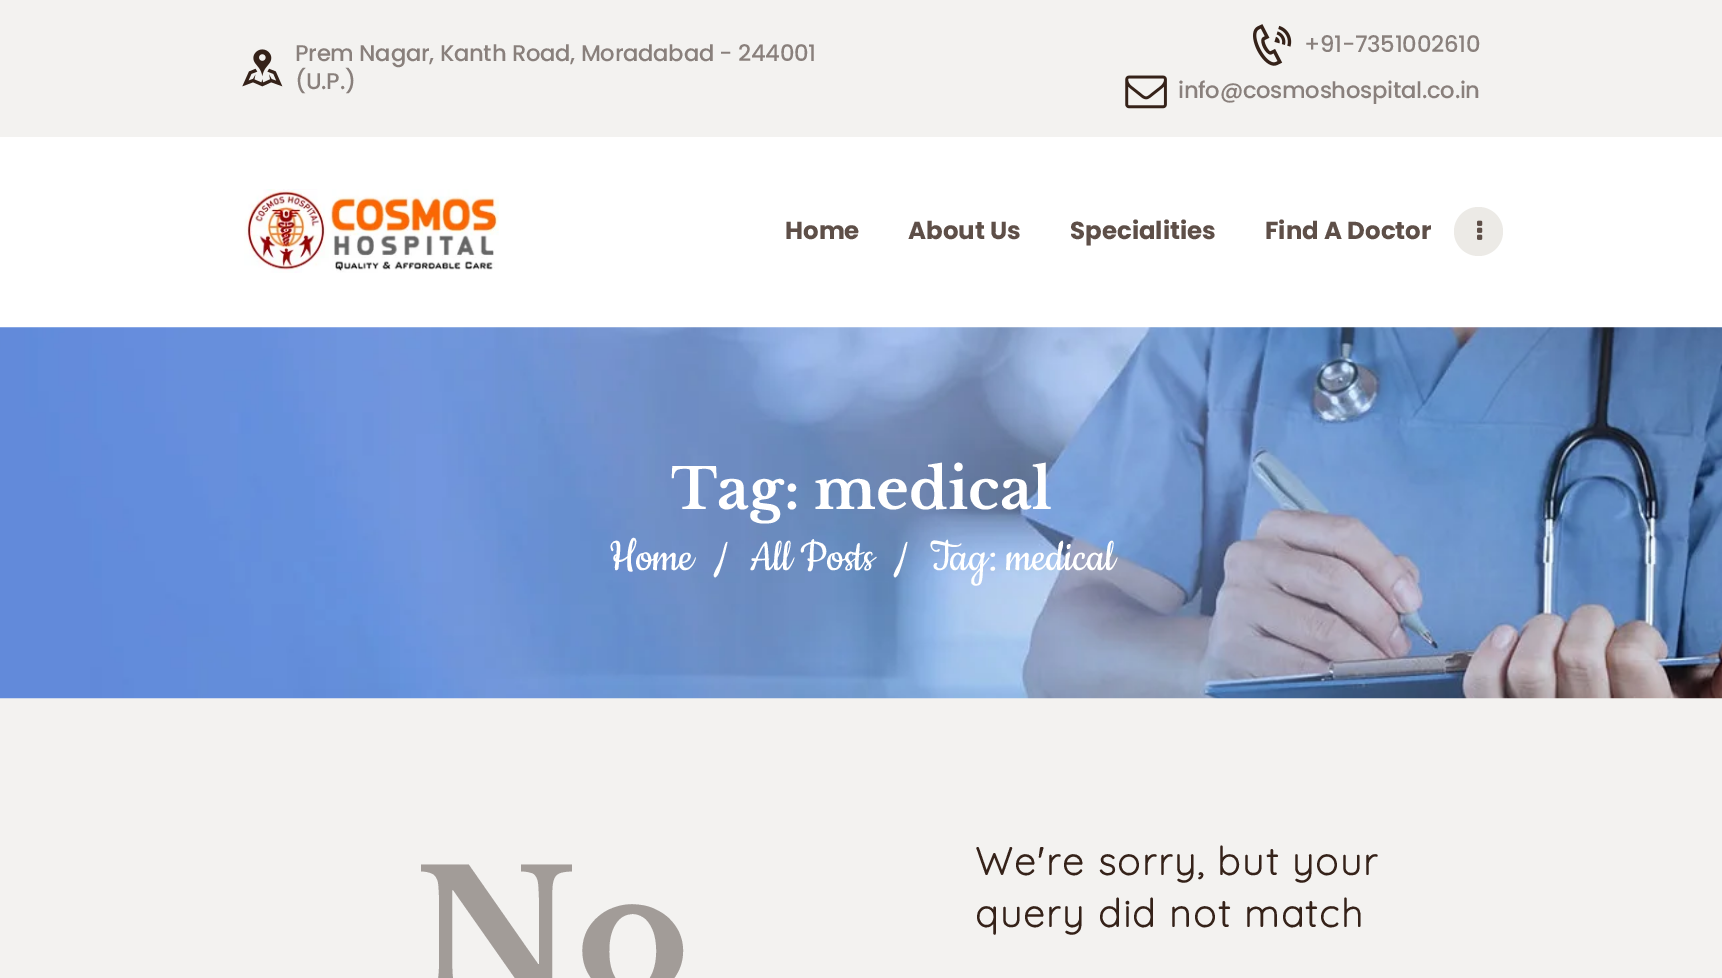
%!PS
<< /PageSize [1722 978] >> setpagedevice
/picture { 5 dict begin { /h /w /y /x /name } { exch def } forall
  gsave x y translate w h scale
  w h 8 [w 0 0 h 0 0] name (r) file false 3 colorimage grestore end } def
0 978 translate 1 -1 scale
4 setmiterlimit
0.953 0.949 0.941 setrgbcolor
0 0 1722 978 rectfill
(img1.rgb) 242 49 41 38 picture
/Poppins-Medium [22.75 0 0 -22.75 0 0] selectfont
0.537 0.502 0.486 setrgbcolor
295 61 moveto -0.3 0 (Prem Nagar, Kanth Road, Moradabad - 244001) ashow
295 89 moveto -0.3 0 (\(U.P.\)) ashow
(img2.rgb) 1253 24 39 42 picture
1304 52 moveto -0.3 0 (+91-7351002610) ashow
(img3.rgb) 1125 75 42 34 picture
1178 98 moveto -0.3 0 (info@cosmoshospital.co.in) ashow
1 setgray
0 137 1722 190 rectfill
(img4.rgb) 244 189 255 84 picture
/Poppins-Bold [24.5 0 0 -24.5 0 0] selectfont
0.369 0.31 0.282 setrgbcolor
785 239 moveto (Home) show
908 239 moveto (About Us) show
1070 239 moveto (Specialities) show
1265 239 moveto (Find A Doctor) show
0.925 0.918 0.902 setrgbcolor
newpath 1478.5 231.5 24.5 0 360 arc closepath fill
(img5.rgb) 1477 220 6 20 picture
(img6.rgb) 0 327 1722 372 picture
/LibreBaskerville-Bold [56 0 0 -56 0 0] selectfont
1 setgray
671 509 moveto (Tag: medical) show
/Cookie-Regular [49 0 0 -49 0 0] selectfont
609 570 moveto -0.3 0 (Home) ashow
715 570 moveto -0.3 0 (/) ashow
750 570 moveto -0.3 0 (All Posts) ashow
895 570 moveto -0.3 0 (/) ashow
930 570 moveto -0.3 0 (Tag: medical) ashow
/LibreBaskerville-Bold [172 0 0 -172 0 0] selectfont
0.635 0.612 0.596 setrgbcolor
414 997 moveto (No) show
/Quicksand-Bold [38.5 0 0 -38.5 0 0] selectfont
0.208 0.133 0.098 setrgbcolor
975 875 moveto 1.75 0 (We're sorry, but your) ashow
975 927 moveto 1.75 0 (query did not match) ashow
showpage
